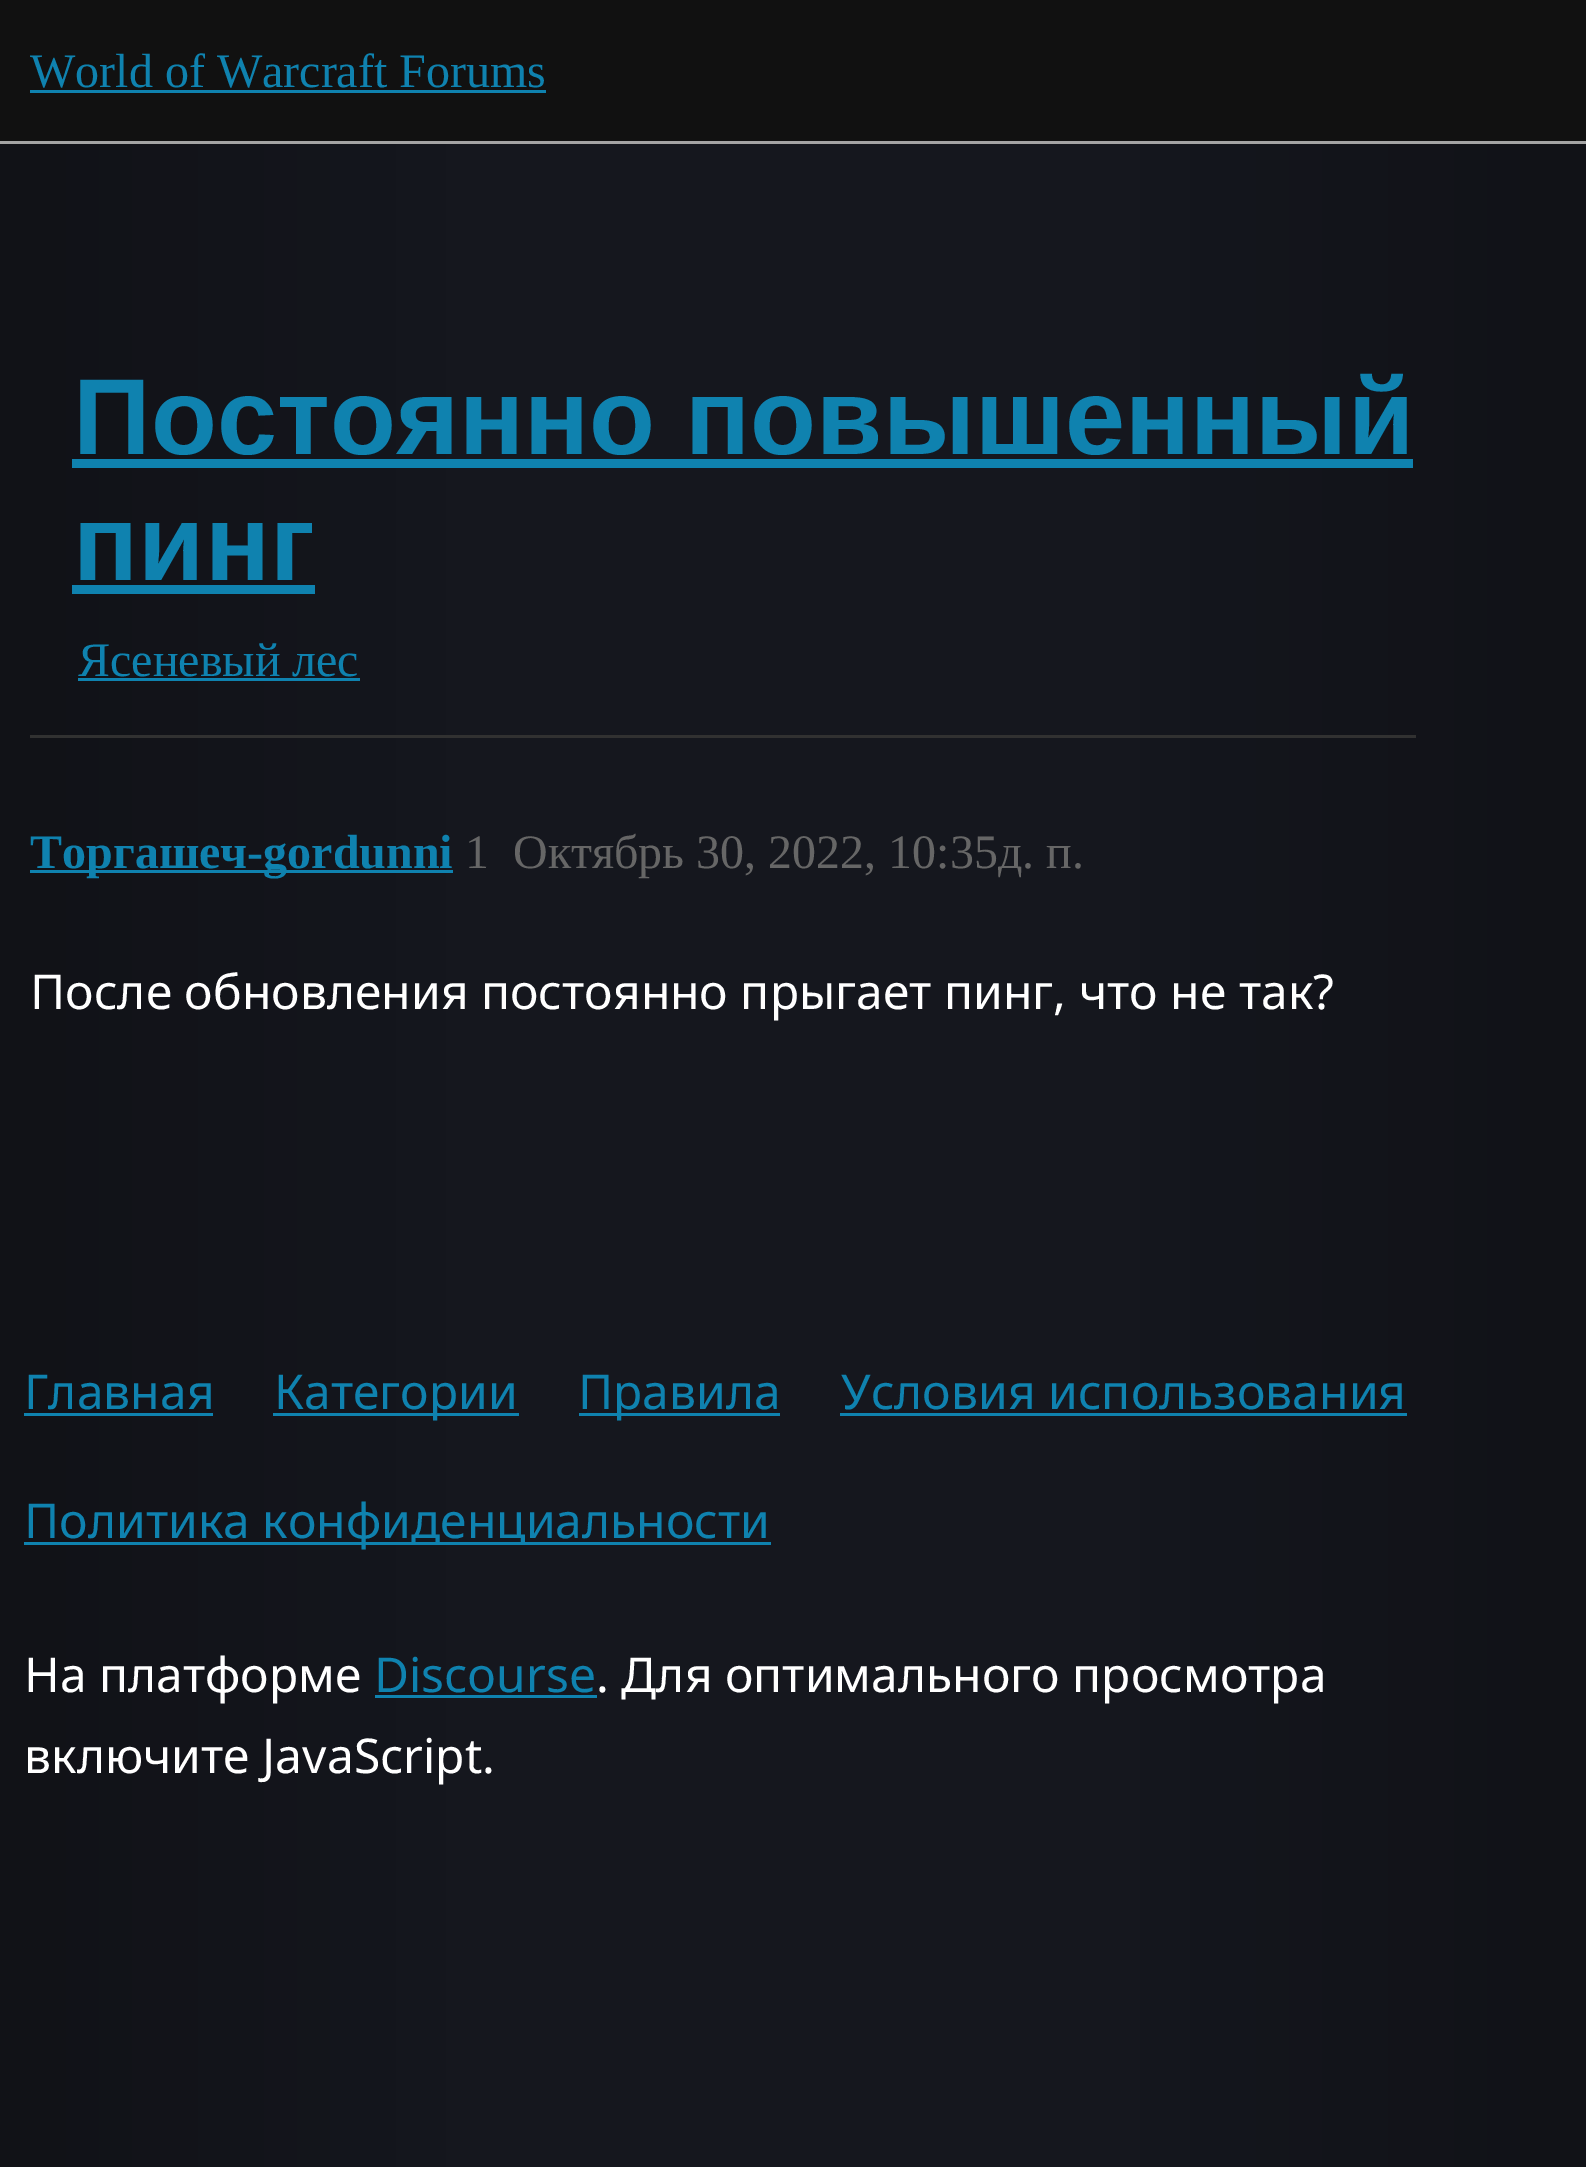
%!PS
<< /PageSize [1586 2167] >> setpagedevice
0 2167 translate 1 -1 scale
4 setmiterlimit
1 setgray
0 0 1586 2167 rectfill
gsave newpath 0 144 moveto 1586 144 lineto 1586 2167 lineto 0 2167 lineto closepath clip newpath
<< /ShadingType 2 /ColorSpace /DeviceRGB /Coords [0 1085 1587 1085] /Extend [true true] /Function << /FunctionType 3 /Domain [0 1] /Functions [<< /FunctionType 2 /Domain [0 1] /C0 [0.067 0.071 0.09] /C1 [0.082 0.09 0.118] /N 1 >> << /FunctionType 2 /Domain [0 1] /C0 [0.082 0.09 0.118] /C1 [0.082 0.09 0.118] /N 1 >> << /FunctionType 2 /Domain [0 1] /C0 [0.082 0.09 0.118] /C1 [0.067 0.071 0.09] /N 1 >>] /Bounds [0.3 0.7] /Encode [0 1 0 1 0 1] >> >> shfill grestore
0.067 setgray
0 0 1586 141 rectfill
0.643 setgray
0 141 1586 3 rectfill
/LiberationSerif-Regular [48 0 0 -48 0 0] selectfont
0.059 0.51 0.686 setrgbcolor
30 87 moveto (World of Warcraft Forums) show
30 90 516 3 rectfill
/LiberationSans-Bold [108 0 0 -108 0 0] selectfont
73 454 moveto (Постоянно повышенный) show
72 459 1341 9 rectfill
73 580 moveto (пинг) show
72 585 243 9 rectfill
/LiberationSerif-Regular [48 0 0 -48 0 0] selectfont
78 676 moveto (Ясеневый лес) show
78 678 282 3 rectfill
0.192 setgray
30 735 1386 3 rectfill
0.059 0.51 0.686 setrgbcolor
30 870 423 3 rectfill
/LiberationSerif-Bold [48 0 0 -48 0 0] selectfont
30 868 moveto (Торгашеч-gordunni) show
/LiberationSerif-Regular [48 0 0 -48 0 0] selectfont
0.4 setgray
465 868 moveto (1) show
513 868 moveto (Октябрь 30, 2022, 10:35д. п.) show
/NotoSans-Regular [48 0 0 -48 0 0] selectfont
1 setgray
30 1009 moveto (После обновления постоянно прыгает пинг, что не так?) show
0.059 0.51 0.686 setrgbcolor
24 1409 moveto (Главная) show
24 1413 189 3 rectfill
273 1413 246 3 rectfill
274 1409 moveto (Категории) show
579 1413 201 3 rectfill
578 1409 moveto (Правила) show
841 1409 moveto (Условия использования) show
840 1413 567 3 rectfill
24 1542 747 3 rectfill
24 1538 moveto (Политика конфиденциальности) show
1 setgray
24 1692 moveto (На платформе) show
0.059 0.51 0.686 setrgbcolor
374 1692 moveto (Discourse) show
375 1695 222 3 rectfill
1 setgray
596 1692 moveto (. Для оптимального просмотра) show
24 1773 moveto (включите JavaScript.) show
showpage
